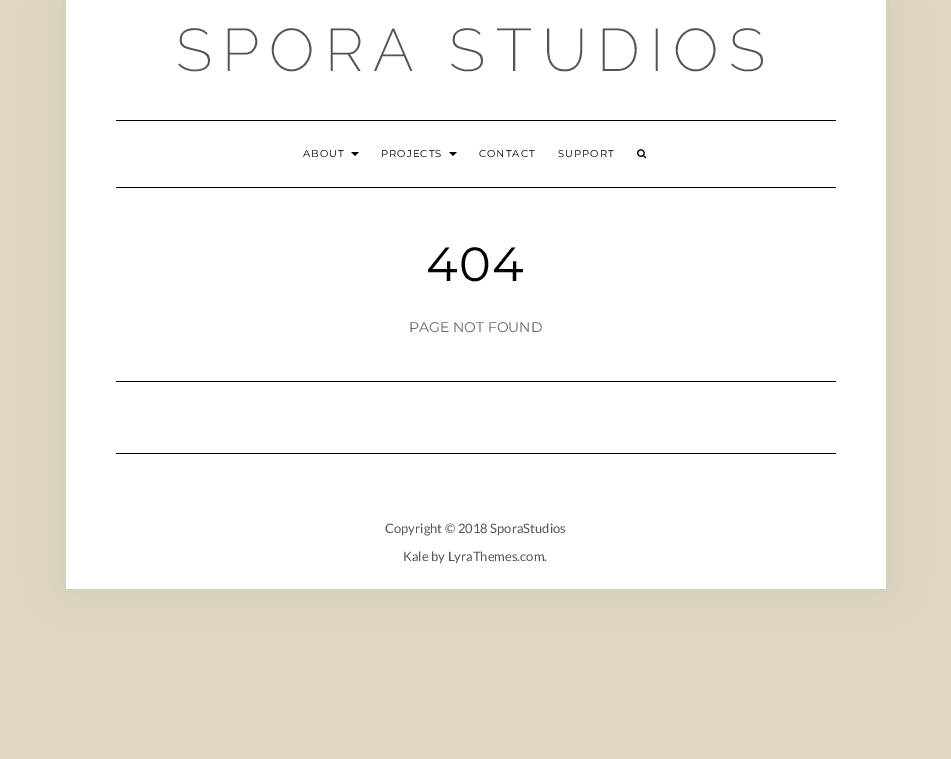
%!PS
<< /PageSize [951 759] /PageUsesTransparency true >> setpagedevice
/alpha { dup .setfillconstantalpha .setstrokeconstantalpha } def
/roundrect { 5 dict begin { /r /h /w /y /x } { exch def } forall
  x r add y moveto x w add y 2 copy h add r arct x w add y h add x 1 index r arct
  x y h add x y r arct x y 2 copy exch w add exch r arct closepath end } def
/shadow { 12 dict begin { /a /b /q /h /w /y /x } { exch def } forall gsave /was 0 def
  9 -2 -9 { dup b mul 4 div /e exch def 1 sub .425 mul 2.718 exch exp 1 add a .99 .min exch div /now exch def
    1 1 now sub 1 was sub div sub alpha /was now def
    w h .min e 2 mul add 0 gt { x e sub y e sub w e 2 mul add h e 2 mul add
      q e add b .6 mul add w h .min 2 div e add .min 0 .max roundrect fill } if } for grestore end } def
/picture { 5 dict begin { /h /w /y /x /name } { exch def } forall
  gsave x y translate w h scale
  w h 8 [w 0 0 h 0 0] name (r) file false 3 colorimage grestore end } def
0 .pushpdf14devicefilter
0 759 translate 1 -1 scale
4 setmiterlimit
0.867 0.843 0.765 setrgbcolor
0 0 951 759 rectfill
0 setgray
66 0 820 589 0 25 0.06 shadow
1 setgray
66 0 820 589 rectfill
/Raleway-Thin [60 0 0 -60 0 0] selectfont
0.329 setgray
176 71 moveto 10 0 (SPORA STUDIOS) ashow
0 setgray
116 120 720 1 rectfill
116 187 720 1 rectfill
/Montserrat-Regular [10 0 0 -10 0 0] selectfont
303 157 moveto 1 0 (ABOUT) ashow
newpath 351 152 moveto 359 152 lineto 355 156 lineto closepath fill
381 157 moveto 1 0 (PROJECTS) ashow
newpath 449 152 moveto 457 152 lineto 453 156 lineto closepath fill
479 157 moveto 1 0 (CONTACT) ashow
558 157 moveto 1 0 (SUPPORT) ashow
(img1.rgb) 637 149 10 10 picture
/Montserrat-Regular [48 0 0 -48 0 0] selectfont
426 281 moveto 1 0 (404) ashow
/Montserrat-Regular [14 0 0 -14 0 0] selectfont
0.4 setgray
409 332 moveto (PAGE NOT FOUND) show
0 setgray
116 381 720 1 rectfill
116 453 720 1 rectfill
/Lato-Regular [13 0 0 -13 0 0] selectfont
0.329 setgray
385 533 moveto (Copyright © 2018 SporaStudios) show
403 561 moveto (Kale by LyraThemes.com.) show
.poppdf14devicefilter showpage
